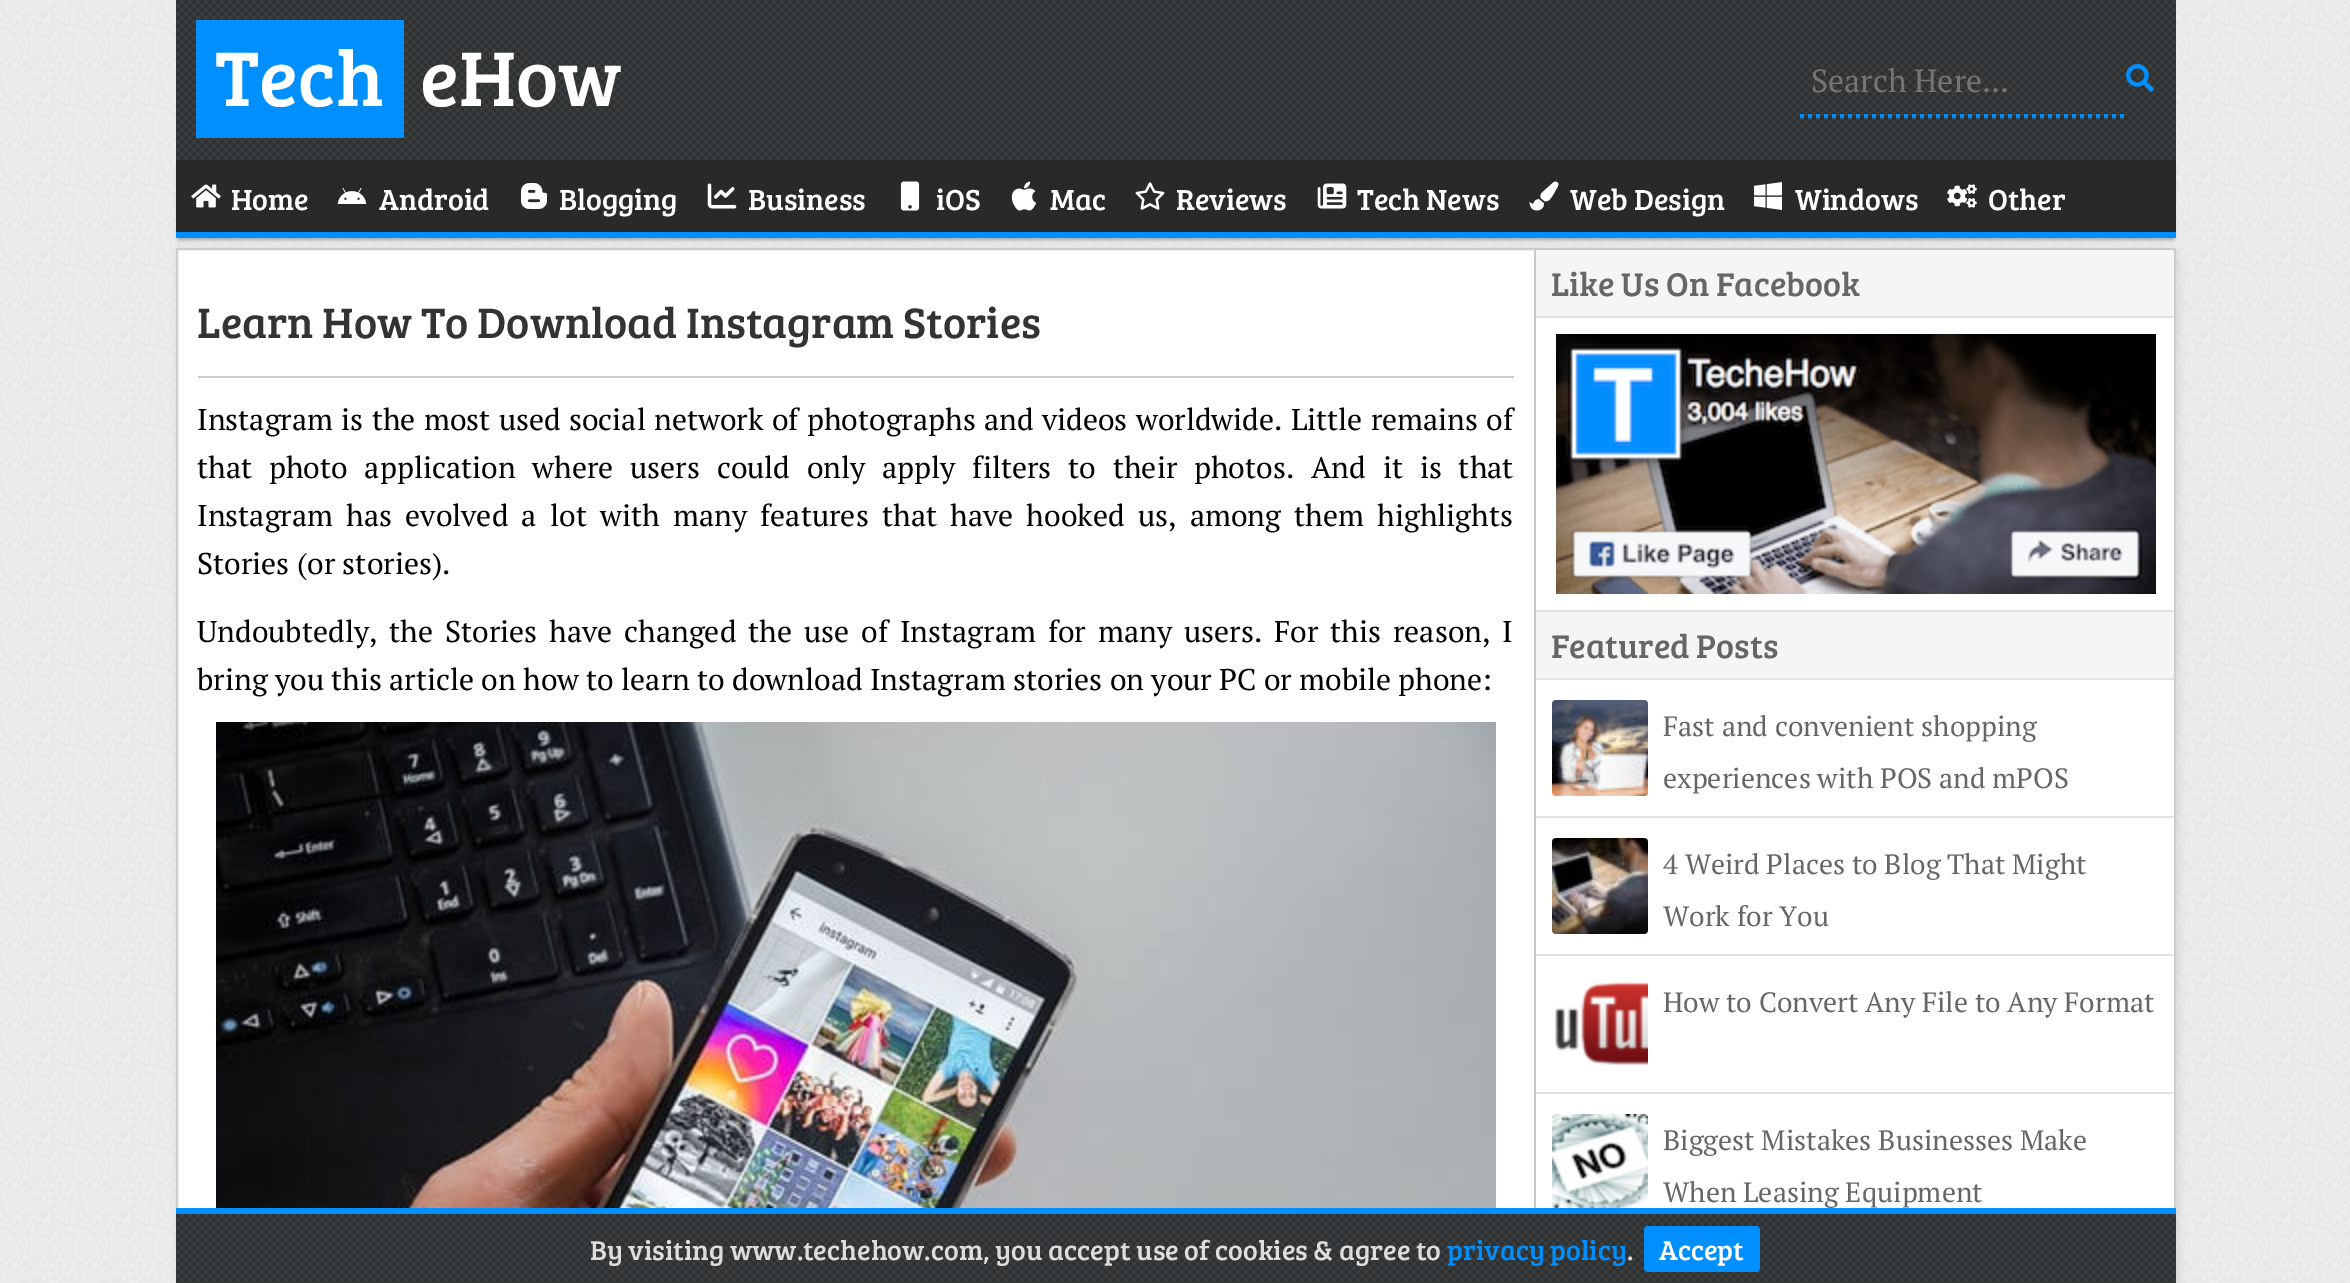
%!PS
<< /PageSize [2350 1283] /PageUsesTransparency true >> setpagedevice
/alpha { dup .setfillconstantalpha .setstrokeconstantalpha } def
/roundrect { 5 dict begin { /r /h /w /y /x } { exch def } forall
  x r add y moveto x w add y 2 copy h add r arct x w add y h add x 1 index r arct
  x y h add x y r arct x y 2 copy exch w add exch r arct closepath end } def
/shadow { 12 dict begin { /a /b /q /h /w /y /x } { exch def } forall gsave /was 0 def
  9 -2 -9 { dup b mul 4 div /e exch def 1 sub .425 mul 2.718 exch exp 1 add a .99 .min exch div /now exch def
    1 1 now sub 1 was sub div sub alpha /was now def
    w h .min e 2 mul add 0 gt { x e sub y e sub w e 2 mul add h e 2 mul add
      q e add b .6 mul add w h .min 2 div e add .min 0 .max roundrect fill } if } for grestore end } def
/picture { 5 dict begin { /h /w /y /x /name } { exch def } forall
  gsave x y translate w h scale
  w h 8 [w 0 0 h 0 0] name (r) file false 3 colorimage grestore end } def
0 .pushpdf14devicefilter
0 1283 translate 1 -1 scale
4 setmiterlimit
1 setgray
0 0 2350 1283 rectfill
(img1.rgb) 0 0 2350 1283 picture
(img2.rgb) 176 0 2000 160 picture
0 0.561 1 setrgbcolor
196 20 208 118 rectfill
/BreeSerif-Regular [80 0 0 -80 0 0] selectfont
1 setgray
215 106 moveto (Tech) show
420 106 moveto (eHow) show
0 0.561 1 setrgbcolor
4 setlinewidth
[4 4] 0 setdash
newpath 1800 116 moveto 2124 116 lineto stroke
/PTSerif-Regular [32 0 0 -32 0 0] selectfont
0.459 setgray
1811 92 moveto (Search Here...) show
(img3.rgb) 2126 64 28 28 picture
0 setgray
178 166 1996 74 0 2 0.3 shadow
0.161 setgray
176 160 2000 72 rectfill
0 setgray
178 250 1360 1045 0 4 0.1 shadow
1 setgray
178 250 1356 958 rectfill
0.804 setgray
2 setlinewidth
[] 0 setdash
177 249 1358 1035 rectstroke
0 setgray
1538 250 640 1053 8 4 0.1 shadow
0 0.561 1 setrgbcolor
176 232 2000 6 rectfill
(img4.rgb) 191 184 30 24 picture
/BreeSerif-Regular [30 0 0 -30 0 0] selectfont
1 setgray
231 210 moveto (Home) show
(img5.rgb) 337 188 30 16 picture
379 210 moveto (Android) show
(img6.rgb) 521 183 26 26 picture
559 210 moveto (Blogging) show
(img7.rgb) 707 183 30 26 picture
748 210 moveto (Business) show
(img8.rgb) 900 181 20 30 picture
936 210 moveto (iOS) show
(img9.rgb) 1011 181 26 30 picture
1050 210 moveto (Mac) show
(img10.rgb) 1135 182 30 28 picture
1176 210 moveto (Reviews) show
(img11.rgb) 1317 183 30 26 picture
1357 210 moveto (Tech News) show
(img12.rgb) 1529 181 30 30 picture
1570 210 moveto (Web Design) show
(img13.rgb) 1754 182 28 28 picture
1795 210 moveto (Windows) show
(img14.rgb) 1947 184 30 24 picture
1988 210 moveto (Other) show
0.8 setgray
198 376 1316 2 rectfill
/BreeSerif-Regular [44 0 0 -44 0 0] selectfont
0.2 setgray
197 338 moveto (Learn How To Download Instagram Stories) show
/PTSerif-Regular [30 0 0 -30 0 0] selectfont
0 setgray
197 430 moveto 1 0 32 (Instagram is the most used social network of photographs and videos worldwide. Little remains of) widthshow
197 478 moveto 9.5 0 32 (that photo application where users could only apply filters to their photos. And it is that) widthshow
197 526 moveto 6 0 32 (Instagram has evolved a lot with many features that have hooked us, among them highlights) widthshow
197 574 moveto (Stories \(or stories\).) show
197 642 moveto 4.6 0 32 (Undoubtedly, the Stories have changed the use of Instagram for many users. For this reason, I) widthshow
197 690 moveto (bring you this article on how to learn to download Instagram stories on your PC or mobile phone:) show
(img15.rgb) 216 722 1280 486 picture
0.804 setgray
newpath 1536 248 moveto 2176 248 lineto 2176 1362 lineto 2176 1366 2172 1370 2168 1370 curveto 1536 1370 lineto closepath 1536 250 moveto 2174 250 lineto 2174 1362 lineto 2174 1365 2171 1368 2168 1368 curveto 1536 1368 lineto closepath eofill
1 setgray
1536 318 638 292 rectfill
0.886 setgray
1536 610 638 2 rectfill
0.961 setgray
1536 250 638 66 rectfill
0.886 setgray
1536 316 638 2 rectfill
/BreeSerif-Regular [34 0 0 -34 0 0] selectfont
0.4 setgray
1551 296 moveto (Like Us On Facebook) show
(img16.rgb) 1556 334 600 260 picture
0.961 setgray
1536 612 638 66 rectfill
0.886 setgray
1536 678 638 2 rectfill
0.4 setgray
1551 658 moveto (Featured Posts) show
1 setgray
1536 680 638 136 rectfill
0.886 setgray
1536 816 638 2 rectfill
(img17.rgb) 1552 700 96 96 picture
/PTSerif-Regular [28 0 0 -28 0 0] selectfont
0.4 setgray
1663 736 moveto (Fast and convenient shopping) show
1663 788 moveto (experiences with POS and mPOS) show
1 setgray
1536 818 638 136 rectfill
0.886 setgray
1536 954 638 2 rectfill
(img18.rgb) 1552 838 96 96 picture
0.4 setgray
1663 874 moveto (4 Weird Places to Blog That Might) show
1663 926 moveto (Work for You) show
1 setgray
1536 956 638 136 rectfill
0.886 setgray
1536 1092 638 2 rectfill
(img19.rgb) 1555 981 93 85 picture
0.4 setgray
1663 1012 moveto (How to Convert Any File to Any Format) show
1 setgray
1536 1094 638 114 rectfill
(img20.rgb) 1552 1114 96 94 picture
0.4 setgray
1663 1150 moveto (Biggest Mistakes Businesses Make) show
1663 1202 moveto (When Leasing Equipment) show
(img21.rgb) 176 1214 2000 69 picture
0 0.561 1 setrgbcolor
176 1208 2000 6 rectfill
/BreeSerif-Regular [28 0 0 -28 0 0] selectfont
0.867 setgray
590 1260 moveto (By visiting www.techehow.com, you accept use of cookies & agree to) show
0 0.561 1 setrgbcolor
1447 1260 moveto (privacy policy) show
0.867 setgray
1627 1260 moveto (.) show
0 0.561 1 setrgbcolor
1644 1226 116 46 4 roundrect fill
1 setgray
1659 1260 moveto (Accept) show
.poppdf14devicefilter showpage
